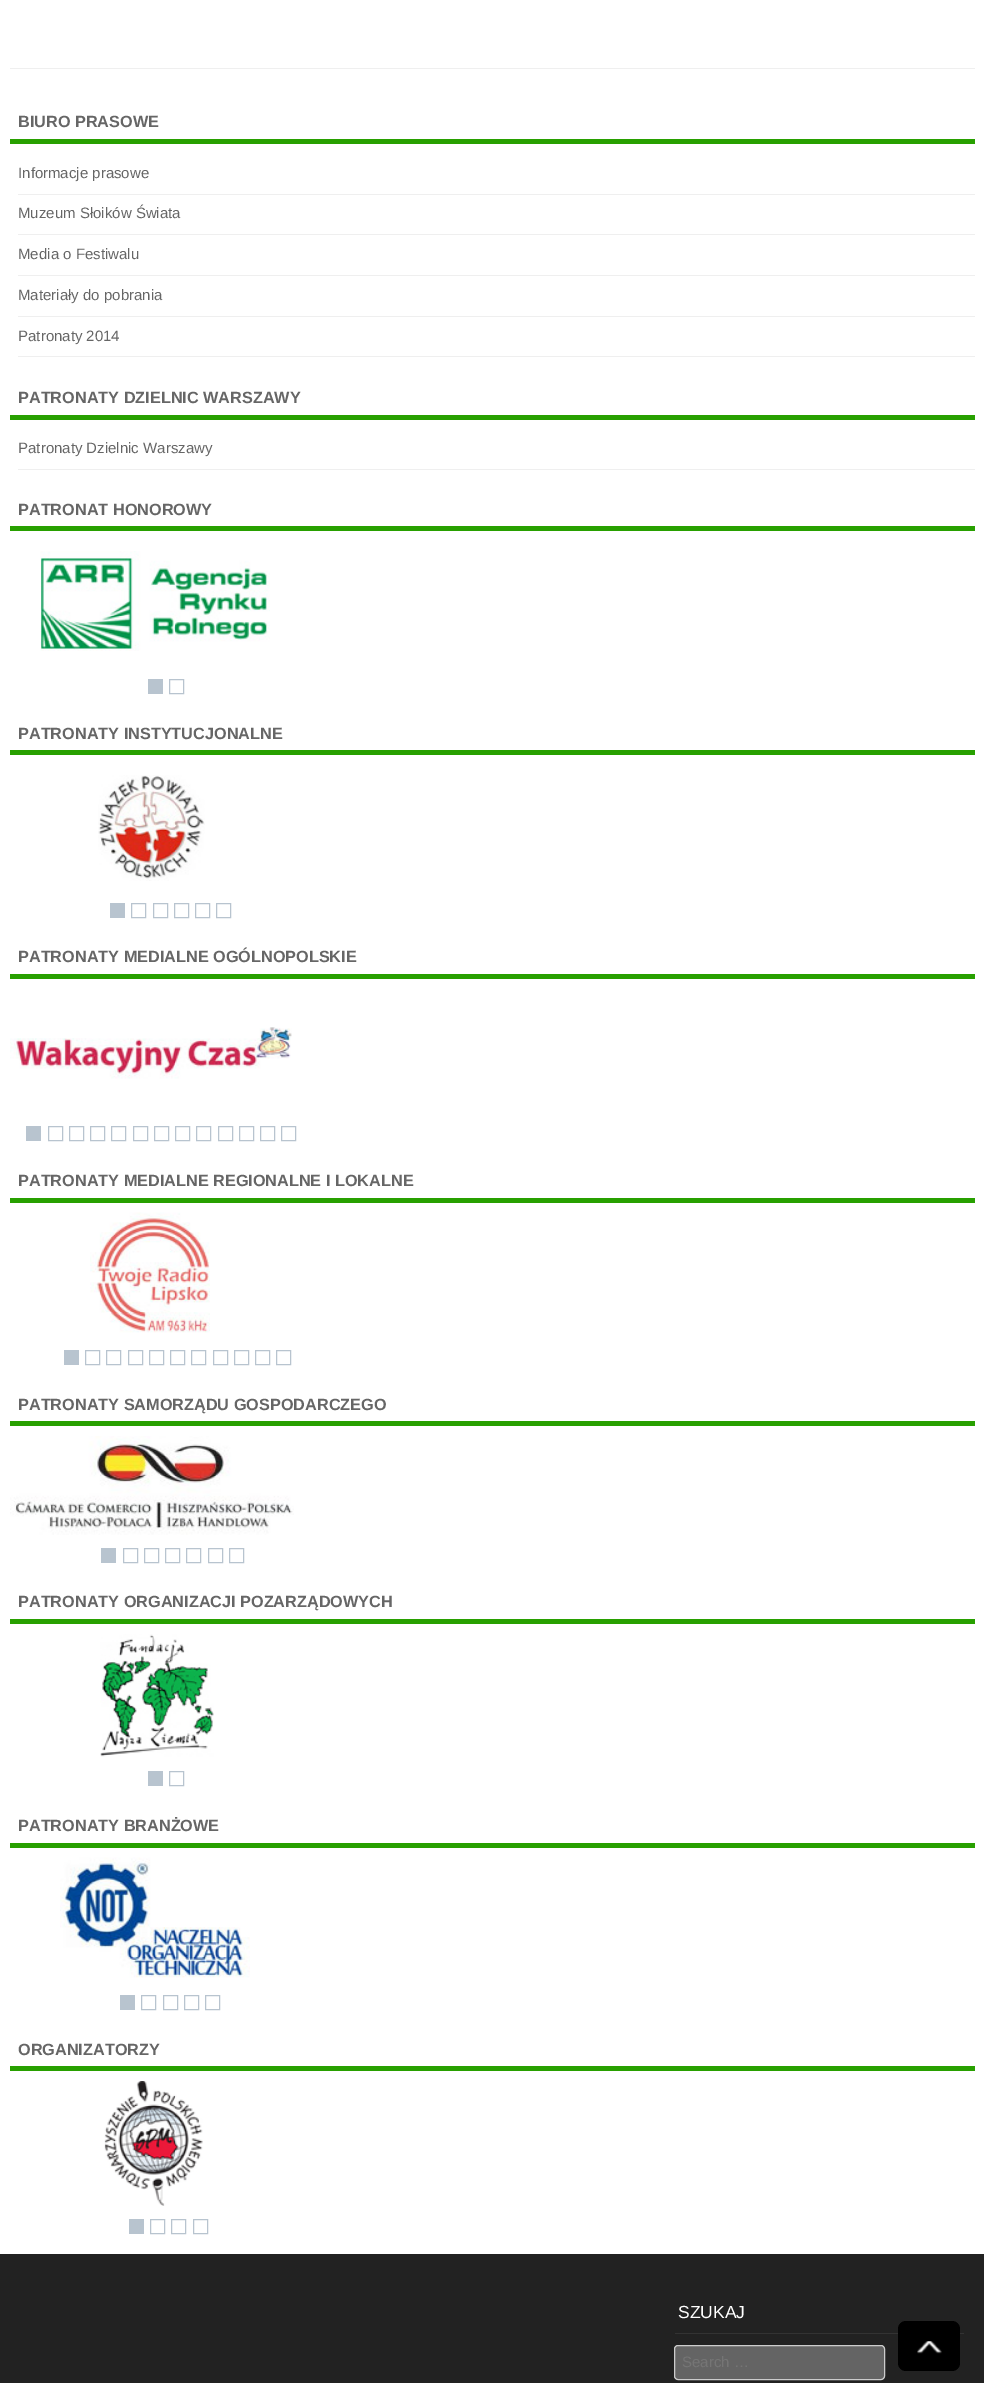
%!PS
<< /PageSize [984 2383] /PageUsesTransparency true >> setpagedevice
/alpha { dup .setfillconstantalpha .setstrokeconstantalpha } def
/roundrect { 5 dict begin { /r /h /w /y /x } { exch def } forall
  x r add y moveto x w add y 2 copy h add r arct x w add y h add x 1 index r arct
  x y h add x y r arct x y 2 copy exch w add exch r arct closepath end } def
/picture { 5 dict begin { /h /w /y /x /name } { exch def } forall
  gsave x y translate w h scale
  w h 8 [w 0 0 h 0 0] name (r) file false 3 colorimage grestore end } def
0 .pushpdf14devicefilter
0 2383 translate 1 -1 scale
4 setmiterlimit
1 setgray
0 0 984 2383 rectfill
0.937 setgray
10 68 965 1 rectfill
0.157 0.627 0 setrgbcolor
10 139 965 5 rectfill
/LiberationSans-Bold [16.25 0 0 -16.25 0 0] selectfont
0.4 setgray
18 127 moveto (BIURO PRASOWE) show
0.937 setgray
18 194 957 1 rectfill
/LiberationSans-Regular [15 0 0 -15 0 0] selectfont
0.4 setgray
18 178 moveto (Informacje prasowe) show
0.937 setgray
18 234 957 1 rectfill
0.4 setgray
18 218 moveto (Muzeum Słoików Świata) show
0.937 setgray
18 275 957 1 rectfill
0.4 setgray
18 259 moveto (Media o Festiwalu) show
0.937 setgray
18 316 957 1 rectfill
0.4 setgray
18 300 moveto (Materiały do pobrania) show
0.937 setgray
18 356 957 1 rectfill
0.4 setgray
18 341 moveto (Patronaty 2014) show
0.157 0.627 0 setrgbcolor
10 415 965 5 rectfill
/LiberationSans-Bold [16.25 0 0 -16.25 0 0] selectfont
0.4 setgray
18 403 moveto (PATRONATY DZIELNIC WARSZAWY) show
0.937 setgray
18 469 957 1 rectfill
/LiberationSans-Regular [15 0 0 -15 0 0] selectfont
0.4 setgray
18 453 moveto (Patronaty Dzielnic Warszawy) show
0.157 0.627 0 setrgbcolor
10 526 965 5 rectfill
/LiberationSans-Bold [16.25 0 0 -16.25 0 0] selectfont
0.4 setgray
18 515 moveto (PATRONAT HONOROWY) show
(img1.rgb) 40 551 230 100 picture
(img2.rgb) 54 565 38 1 picture
(img3.rgb) 92 565 31 1 picture
(img7.rgb) 51 570 1 12 picture
(img4.rgb) 51 566 42 17 picture
(img5.rgb) 92 566 32 17 picture
(img6.rgb) 152 569 23 16 picture
(img8.rgb) 175 572 42 13 picture
(img9.rgb) 216 572 42 7 picture
(img10.rgb) 257 575 6 7 picture
(img11.rgb) 44 613 8 3 picture
(img12.rgb) 110 603 19 13 picture
(img13.rgb) 180 593 37 21 picture
(img14.rgb) 216 593 42 16 picture
(img15.rgb) 257 598 9 11 picture
0.878 0.957 0.922 setrgbcolor
51 615 1 1 rectfill
(img16.rgb) 43 616 9 25 picture
(img17.rgb) 51 616 42 25 picture
(img18.rgb) 92 616 36 25 picture
(img19.rgb) 154 618 21 16 picture
(img20.rgb) 175 618 42 16 picture
(img21.rgb) 216 623 42 16 picture
(img22.rgb) 257 623 9 11 picture
(img23.rgb) 41 641 11 8 picture
(img24.rgb) 51 641 42 8 picture
(img25.rgb) 92 641 40 8 picture
0.722 0.769 0.812 setrgbcolor
148 679 15 15 rectfill
169.5 679.5 14 14 rectstroke
0.157 0.627 0 setrgbcolor
10 750 965 5 rectfill
0.4 setgray
18 739 moveto (PATRONATY INSTYTUCJONALNE) show
(img26.rgb) 98 775 107 106 picture
(img27.rgb) 118 779 16 11 picture
(img28.rgb) 133 777 42 13 picture
(img29.rgb) 175 783 10 7 picture
(img30.rgb) 102 789 32 26 picture
(img31.rgb) 133 789 42 26 picture
(img32.rgb) 175 789 20 26 picture
(img33.rgb) 101 814 33 26 picture
(img34.rgb) 133 814 42 26 picture
(img35.rgb) 175 814 24 26 picture
(img36.rgb) 101 839 33 26 picture
(img37.rgb) 133 839 42 26 picture
(img38.rgb) 175 839 24 26 picture
(img39.rgb) 123 864 11 9 picture
(img40.rgb) 133 864 42 12 picture
(img41.rgb) 175 864 6 7 picture
0.722 0.769 0.812 setrgbcolor
110 903 15 15 rectfill
131.5 903.5 14 14 rectstroke
153.5 903.5 14 14 rectstroke
174.5 903.5 14 14 rectstroke
195.5 903.5 14 14 rectstroke
216.5 903.5 14 14 rectstroke
0.157 0.627 0 setrgbcolor
10 974 965 5 rectfill
0.4 setgray
18 962 moveto (PATRONATY MEDIALNE OGÓLNOPOLSKIE) show
(img42.rgb) 10 1027 282 52 picture
0.5 alpha
1 setgray
17 1038 19 1 rectfill
1 alpha
(img43.rgb) 261 1030 27 9 picture
(img44.rgb) 17 1038 35 26 picture
0.5 alpha
63 1038 3 1 rectfill
1 alpha
(img45.rgb) 51 1038 42 26 picture
(img46.rgb) 21 1063 30 1 picture
(img47.rgb) 92 1047 42 17 picture
(img48.rgb) 133 1041 42 23 picture
(img49.rgb) 175 1047 42 17 picture
(img50.rgb) 216 1046 42 18 picture
(img51.rgb) 257 1038 31 23 picture
(img52.rgb) 53 1063 40 3 picture
(img53.rgb) 92 1063 42 9 picture
(img54.rgb) 133 1063 42 9 picture
(img55.rgb) 175 1063 35 3 picture
(img56.rgb) 218 1063 38 1 picture
0.722 0.769 0.812 setrgbcolor
26 1126 15 15 rectfill
48.5 1126.5 14 14 rectstroke
69.5 1126.5 14 14 rectstroke
90.5 1126.5 14 14 rectstroke
111.5 1126.5 14 14 rectstroke
133.5 1126.5 14 14 rectstroke
154.5 1126.5 14 14 rectstroke
175.5 1126.5 14 14 rectstroke
196.5 1126.5 14 14 rectstroke
218.5 1126.5 14 14 rectstroke
239.5 1126.5 14 14 rectstroke
260.5 1126.5 14 14 rectstroke
281.5 1126.5 14 14 rectstroke
0.157 0.627 0 setrgbcolor
10 1198 965 5 rectfill
0.4 setgray
18 1186 moveto (PATRONATY MEDIALNE REGIONALNE I LOKALNE) show
(img57.rgb) 90 1212 120 121 picture
(img58.rgb) 111 1222 23 16 picture
(img59.rgb) 133 1221 42 17 picture
(img60.rgb) 175 1230 21 8 picture
(img61.rgb) 98 1237 36 26 picture
(img62.rgb) 133 1237 42 6 picture
(img63.rgb) 175 1237 30 26 picture
(img64.rgb) 98 1262 36 26 picture
(img65.rgb) 133 1268 42 20 picture
(img66.rgb) 175 1262 34 26 picture
(img67.rgb) 101 1287 33 26 picture
(img68.rgb) 133 1287 42 26 picture
(img69.rgb) 175 1287 17 13 picture
(img70.rgb) 106 1312 28 17 picture
(img71.rgb) 133 1312 42 18 picture
(img72.rgb) 175 1321 1 10 picture
0.722 0.769 0.812 setrgbcolor
64 1350 15 15 rectfill
85.5 1350.5 14 14 rectstroke
106.5 1350.5 14 14 rectstroke
128.5 1350.5 14 14 rectstroke
149.5 1350.5 14 14 rectstroke
170.5 1350.5 14 14 rectstroke
191.5 1350.5 14 14 rectstroke
213.5 1350.5 14 14 rectstroke
234.5 1350.5 14 14 rectstroke
255.5 1350.5 14 14 rectstroke
276.5 1350.5 14 14 rectstroke
0.157 0.627 0 setrgbcolor
10 1421 965 5 rectfill
0.4 setgray
18 1410 moveto (PATRONATY SAMORZĄDU GOSPODARCZEGO) show
(img73.rgb) 10 1436 284 99 picture
(img74.rgb) 100 1446 34 10 picture
(img75.rgb) 133 1445 33 11 picture
(img76.rgb) 175 1450 42 6 picture
(img77.rgb) 216 1450 5 6 picture
(img78.rgb) 99 1456 35 20 picture
(img79.rgb) 134 1456 41 20 picture
(img80.rgb) 175 1456 42 20 picture
(img81.rgb) 216 1456 6 20 picture
(img82.rgb) 103 1476 31 5 picture
(img83.rgb) 133 1476 42 5 picture
(img84.rgb) 175 1476 41 5 picture
0.988 0.992 0.992 setrgbcolor
216 1476 1 1 rectfill
(img85.rgb) 216 1502 1 9 picture
(img86.rgb) 51 1504 1 9 picture
(img91.rgb) 133 1505 1 7 picture
(img87.rgb) 133 1503 35 13 picture
(img88.rgb) 216 1502 42 10 picture
(img89.rgb) 257 1503 31 9 picture
(img90.rgb) 51 1504 1 9 picture
(img94.rgb) 51 1518 1 8 picture
(img92.rgb) 51 1516 42 10 picture
(img95.rgb) 92 1518 42 9 picture
(img93.rgb) 133 1516 42 11 picture
(img96.rgb) 175 1518 42 8 picture
(img97.rgb) 216 1518 42 8 picture
(img98.rgb) 257 1519 11 8 picture
0.722 0.769 0.812 setrgbcolor
101 1548 15 15 rectfill
123.5 1548.5 14 14 rectstroke
144.5 1548.5 14 14 rectstroke
165.5 1548.5 14 14 rectstroke
186.5 1548.5 14 14 rectstroke
208.5 1548.5 14 14 rectstroke
229.5 1548.5 14 14 rectstroke
0.157 0.627 0 setrgbcolor
10 1619 965 5 rectfill
0.4 setgray
18 1607 moveto (PATRONATY ORGANIZACJI POZARZĄDOWYCH) show
(img99.rgb) 100 1634 114 123 picture
(img102.rgb) 133 1647 1 5 picture
(img100.rgb) 133 1636 40 23 picture
(img101.rgb) 175 1641 1 15 picture
(img103.rgb) 103 1663 31 21 picture
(img104.rgb) 133 1658 42 26 picture
(img105.rgb) 175 1667 29 17 picture
(img106.rgb) 103 1683 31 26 picture
(img107.rgb) 133 1683 42 26 picture
(img108.rgb) 175 1683 36 26 picture
(img109.rgb) 109 1708 25 26 picture
(img110.rgb) 133 1708 36 26 picture
(img111.rgb) 187 1708 24 26 picture
(img112.rgb) 109 1733 25 11 picture
(img113.rgb) 133 1733 40 11 picture
(img114.rgb) 175 1733 34 8 picture
0.722 0.769 0.812 setrgbcolor
148 1771 15 15 rectfill
169.5 1771.5 14 14 rectstroke
0.157 0.627 0 setrgbcolor
10 1843 965 5 rectfill
0.4 setgray
18 1831 moveto (PATRONATY BRANŻOWE) show
(img115.rgb) 60 1857 190 121 picture
(img116.rgb) 77 1871 16 12 picture
(img117.rgb) 92 1871 42 12 picture
(img118.rgb) 133 1867 15 16 picture
(img119.rgb) 77 1882 16 26 picture
(img120.rgb) 92 1882 42 26 picture
(img121.rgb) 133 1882 10 26 picture
(img122.rgb) 70 1907 23 26 picture
(img123.rgb) 92 1907 42 26 picture
(img124.rgb) 133 1907 42 26 picture
(img125.rgb) 175 1930 42 3 picture
(img126.rgb) 216 1930 23 3 picture
(img127.rgb) 77 1932 16 8 picture
(img128.rgb) 92 1932 42 26 picture
(img129.rgb) 133 1932 42 26 picture
(img130.rgb) 175 1932 42 26 picture
(img131.rgb) 216 1932 26 26 picture
(img132.rgb) 128 1957 6 5 picture
(img133.rgb) 133 1957 42 17 picture
(img134.rgb) 175 1957 42 18 picture
(img135.rgb) 216 1957 27 18 picture
0.722 0.769 0.812 setrgbcolor
120 1995 15 15 rectfill
141.5 1995.5 14 14 rectstroke
163.5 1995.5 14 14 rectstroke
184.5 1995.5 14 14 rectstroke
205.5 1995.5 14 14 rectstroke
0.157 0.627 0 setrgbcolor
10 2066 965 5 rectfill
0.4 setgray
18 2055 moveto (ORGANIZATORZY) show
(img136.rgb) 104 2081 99 125 picture
(img137.rgb) 121 2097 13 9 picture
(img138.rgb) 133 2083 42 23 picture
(img139.rgb) 175 2096 13 10 picture
(img140.rgb) 108 2106 26 25 picture
(img141.rgb) 133 2106 42 25 picture
(img142.rgb) 175 2106 25 25 picture
(img143.rgb) 108 2131 26 25 picture
(img144.rgb) 133 2131 42 25 picture
(img145.rgb) 175 2131 25 25 picture
(img146.rgb) 107 2156 27 25 picture
(img147.rgb) 133 2156 42 25 picture
(img148.rgb) 175 2156 25 25 picture
(img149.rgb) 128 2181 6 5 picture
(img150.rgb) 133 2181 42 19 picture
(img151.rgb) 175 2181 4 3 picture
0.722 0.769 0.812 setrgbcolor
129 2219 15 15 rectfill
150.5 2219.5 14 14 rectstroke
171.5 2219.5 14 14 rectstroke
193.5 2219.5 14 14 rectstroke
0.133 setgray
0 2254 984 129 rectfill
0.2 setgray
675 2333 289 1 rectfill
/LiberationSans-Regular [17.5 0 0 -17.5 0 0] selectfont
1 setgray
678 2318 moveto (SZUKAJ) show
0.392 setgray
674.5 2345.5 210 34 3.5 roundrect gsave fill grestore
0.8 setgray
stroke
/LiberationSans-Regular [15 0 0 -15 0 0] selectfont
0.459 setgray
682 2367 moveto (Search …) show
0 setgray
898 2321 62 50 8 roundrect fill
(img152.rgb) 917 2341 25 13 picture
.poppdf14devicefilter showpage
